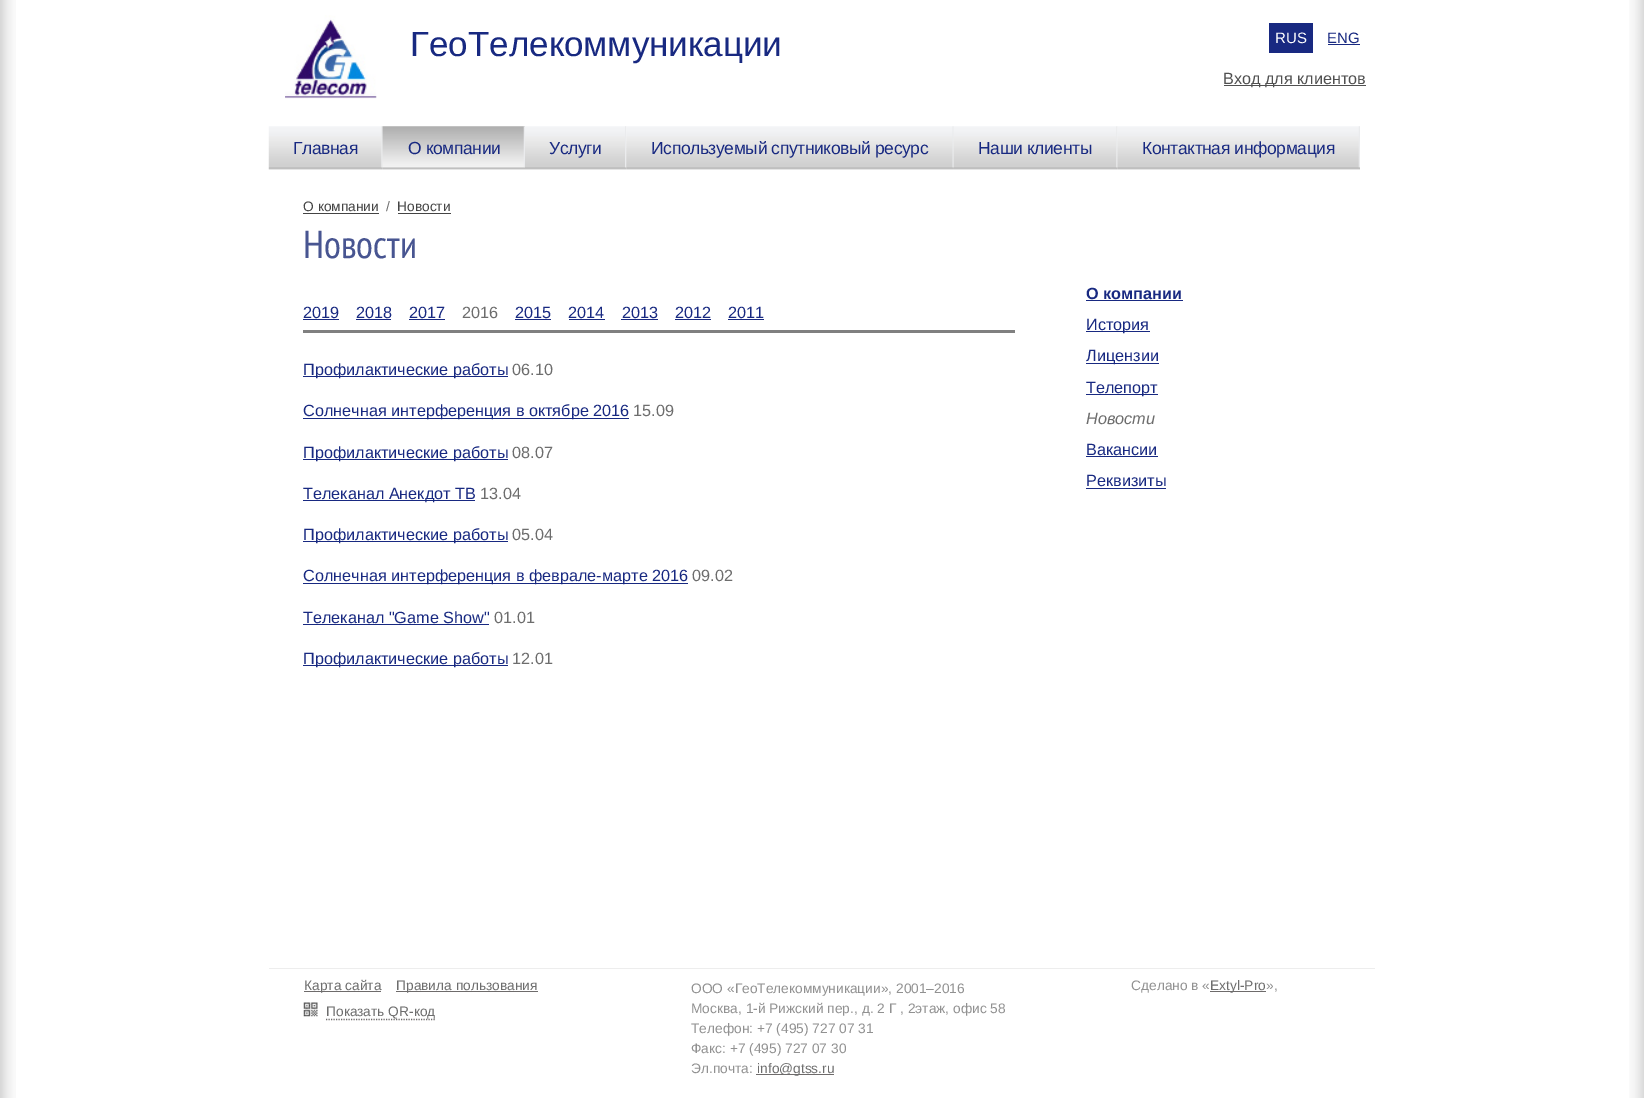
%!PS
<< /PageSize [1644 1098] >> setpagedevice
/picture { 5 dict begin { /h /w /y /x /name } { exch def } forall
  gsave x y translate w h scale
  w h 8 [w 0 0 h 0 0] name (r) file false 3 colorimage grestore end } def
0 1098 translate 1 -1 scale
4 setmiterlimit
1 setgray
0 0 1644 1098 rectfill
(img1.rgb) 1629 0 15 1098 picture
(img2.rgb) 0 0 16 1098 picture
(img3.rgb) 285 15 92 84 picture
/LiberationSans-Regular [35 0 0 -35 0 0] selectfont
0.094 0.161 0.506 setrgbcolor
410 56 moveto (ГеоТелекоммуникации) show
1269 23 44 30 rectfill
/LiberationSans-Regular [15 0 0 -15 0 0] selectfont
1 setgray
1275 43 moveto (RUS) show
0.094 0.161 0.506 setrgbcolor
1327 43 moveto (ENG) show
1328 44 32 1 rectfill
0.314 setgray
1224 85 142 1 rectfill
/LiberationSans-Regular [16.25 0 0 -16.25 0 0] selectfont
1223 84 moveto (Вход для клиентов) show
(img4.rgb) 268 126 115 44 picture
(img5.rgb) 381 126 2 44 picture
/LiberationSans-Regular [17.5 0 0 -17.5 0 0] selectfont
0.094 0.161 0.506 setrgbcolor
293 154 moveto -0.4 0 (Главная) ashow
(img6.rgb) 382 126 143 44 picture
(img7.rgb) 523 126 2 41 picture
408 154 moveto -0.4 0 (О компании) ashow
(img8.rgb) 525 126 102 44 picture
(img9.rgb) 625 126 2 44 picture
549 154 moveto -0.4 0 (Услуги) ashow
(img10.rgb) 626 126 328 44 picture
(img11.rgb) 952 126 2 44 picture
651 154 moveto -0.4 0 (Используемый спутниковый ресурс) ashow
(img12.rgb) 953 126 165 44 picture
(img5.rgb) 1116 126 2 44 picture
978 154 moveto -0.4 0 (Наши клиенты) ashow
(img13.rgb) 1117 126 243 44 picture
(img14.rgb) 1358 126 2 42 picture
1142 154 moveto -0.4 0 (Контактная информация) ashow
/LiberationSans-Regular [13.75 0 0 -13.75 0 0] selectfont
0.267 setgray
303 211 moveto (О компании) show
303 213 76 1 rectfill
0.427 setgray
386 211 moveto (/) show
0.267 setgray
397 211 moveto (Новости) show
398 213 53 1 rectfill
/PTSansNarrow-Regular [39 0 0 -39 0 0] selectfont
0.282 0.333 0.569 setrgbcolor
303 258 moveto (Новости) show
/LiberationSans-Regular [16.25 0 0 -16.25 0 0] selectfont
0.094 0.161 0.506 setrgbcolor
303 318 moveto (2019) show
303 319 36 1 rectfill
356 318 moveto (2018) show
356 319 35 1 rectfill
409 318 moveto (2017) show
409 319 36 1 rectfill
0.427 setgray
462 318 moveto (2016) show
0.094 0.161 0.506 setrgbcolor
515 318 moveto (2015) show
515 319 36 1 rectfill
568 318 moveto (2014) show
569 319 36 1 rectfill
622 318 moveto (2013) show
621 319 37 1 rectfill
675 318 moveto (2012) show
675 319 36 1 rectfill
728 318 moveto (2011) show
728 319 36 1 rectfill
0.502 setgray
303 330 712 3 rectfill
0.094 0.161 0.506 setrgbcolor
303 376 205 1 rectfill
303 375 moveto (Профилактические работы) show
0.427 setgray
512 375 moveto (06.10) show
0.094 0.161 0.506 setrgbcolor
303 418 326 1 rectfill
303 416 moveto (Солнечная интерференция в октябре 2016) show
0.427 setgray
633 416 moveto (15.09) show
0.094 0.161 0.506 setrgbcolor
303 459 205 1 rectfill
303 458 moveto (Профилактические работы) show
0.427 setgray
512 458 moveto (08.07) show
0.094 0.161 0.506 setrgbcolor
303 500 172 1 rectfill
303 499 moveto (Телеканал Анекдот ТВ) show
0.427 setgray
480 499 moveto (13.04) show
0.094 0.161 0.506 setrgbcolor
303 541 205 1 rectfill
303 540 moveto (Профилактические работы) show
0.427 setgray
512 540 moveto (05.04) show
0.094 0.161 0.506 setrgbcolor
303 583 385 1 rectfill
303 581 moveto (Солнечная интерференция в феврале-марте 2016) show
0.427 setgray
692 581 moveto (09.02) show
0.094 0.161 0.506 setrgbcolor
303 623 moveto (Телеканал "Game Show") show
303 624 186 1 rectfill
0.427 setgray
494 623 moveto (01.01) show
0.094 0.161 0.506 setrgbcolor
303 665 205 1 rectfill
303 664 moveto (Профилактические работы) show
0.427 setgray
512 664 moveto (12.01) show
/LiberationSans-Bold [16.25 0 0 -16.25 0 0] selectfont
0.094 0.161 0.506 setrgbcolor
1086 299 moveto (О компании) show
1086 300 97 1 rectfill
1086 331 64 1 rectfill
/LiberationSans-Regular [16.25 0 0 -16.25 0 0] selectfont
1086 330 moveto (История) show
1086 363 73 1 rectfill
1086 361 moveto (Лицензии) show
1086 394 72 1 rectfill
1086 393 moveto (Телепорт) show
/LiberationSans-Italic [16.25 0 0 -16.25 0 0] selectfont
0.427 setgray
1086 424 moveto (Новости) show
/LiberationSans-Regular [16.25 0 0 -16.25 0 0] selectfont
0.094 0.161 0.506 setrgbcolor
1086 455 moveto (Вакансии) show
1086 456 72 1 rectfill
1086 486 moveto (Реквизиты) show
1086 488 80 1 rectfill
0.929 setgray
269 968 1106 1 rectfill
0.431 0.42 0.42 setrgbcolor
304 991 77 1 rectfill
/LiberationSans-Regular [13.75 0 0 -13.75 0 0] selectfont
0.427 setgray
304 990 moveto (Карта сайта) show
0.431 0.42 0.42 setrgbcolor
396 991 142 1 rectfill
0.427 setgray
396 990 moveto (Правила пользования) show
(img15.rgb) 303 1002 15 15 picture
0.431 0.42 0.42 setrgbcolor
1.2 setlinewidth
[1.25 1.25] 0 setdash
newpath 326 1019.5 moveto 435 1019.5 lineto stroke
0.427 setgray
326 1016 moveto (Показать QR-код) show
0.569 setgray
691 993 moveto (ООО «ГеоТелекоммуникации», 2001–2016) show
691 1013 moveto (Москва, 1-й Рижский пер., д. 2 Г , 2этаж, офис 58) show
691 1033 moveto (Телефон: +7 \(495\) 727 07 31) show
691 1053 moveto (Факс: +7 \(495\) 727 07 30) show
691 1073 moveto (Эл.почта:) show
0.431 0.42 0.42 setrgbcolor
756 1074 78 1 rectfill
0.427 setgray
757 1073 moveto (info@gtss.ru) show
0.569 setgray
1131 990 moveto (Сделано в «) show
0.431 0.42 0.42 setrgbcolor
1210 991 56 1 rectfill
0.427 setgray
1210 990 moveto (Extyl-Pro) show
0.569 setgray
1266 990 moveto (»,) show
showpage
